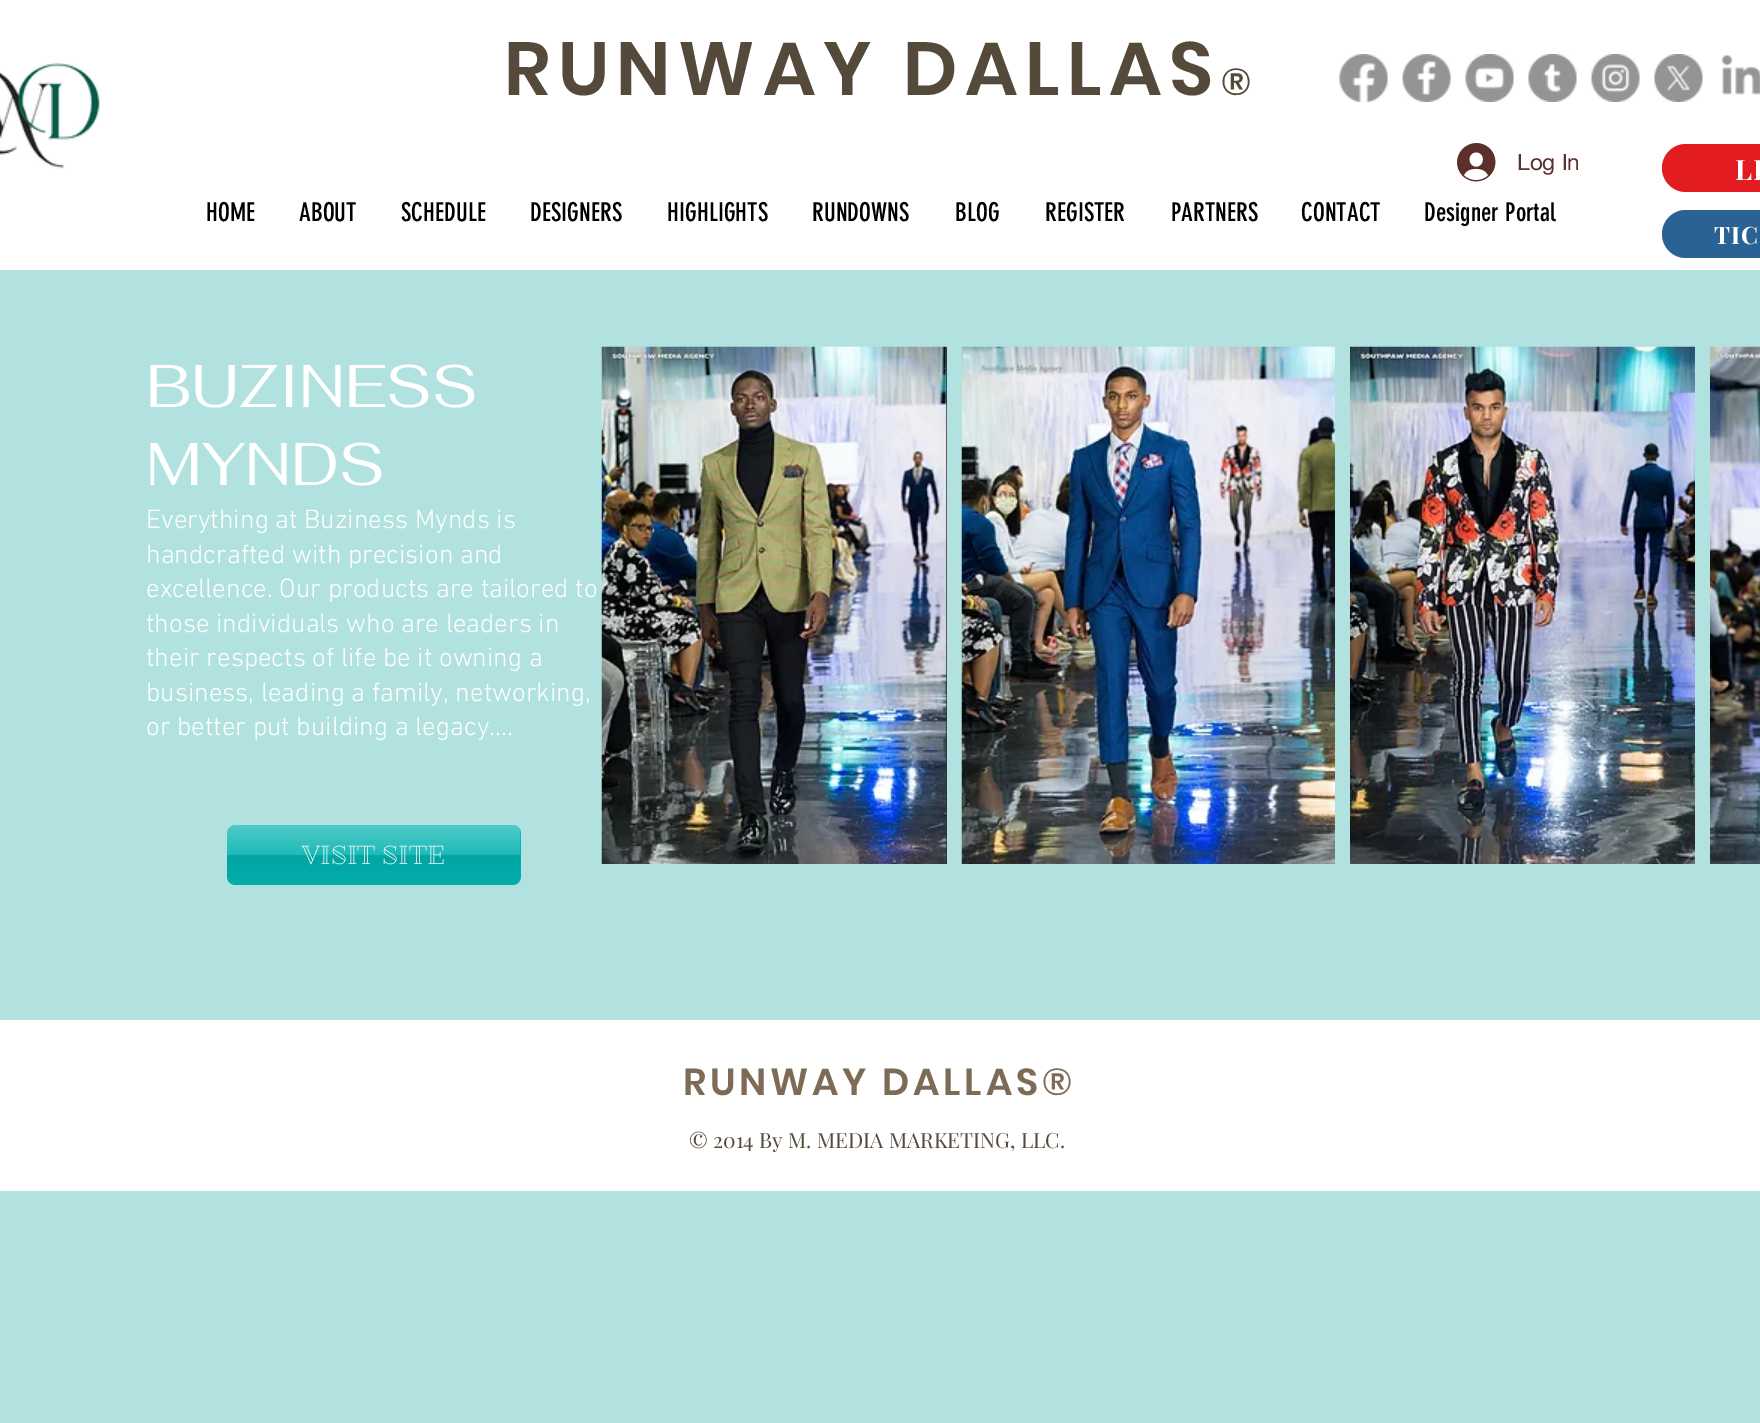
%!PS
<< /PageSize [1760 1423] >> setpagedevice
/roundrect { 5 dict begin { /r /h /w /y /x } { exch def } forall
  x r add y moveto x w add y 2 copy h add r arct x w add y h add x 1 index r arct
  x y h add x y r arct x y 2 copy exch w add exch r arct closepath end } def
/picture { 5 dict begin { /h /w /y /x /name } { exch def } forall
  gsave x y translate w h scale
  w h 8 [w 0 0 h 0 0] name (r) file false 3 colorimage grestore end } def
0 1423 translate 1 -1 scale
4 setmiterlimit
0.698 0.886 0.878 setrgbcolor
0 0 1760 1423 rectfill
1 setgray
0 0 1760 270 rectfill
(img1.rgb) 0 62 100 107 picture
/Poppins-SemiBold [75 0 0 -75 0 0] selectfont
0.329 0.286 0.227 setrgbcolor
504 95 moveto 7.5 0 (RUNWAY DALLAS) ashow
/Poppins-SemiBold [37.5 0 0 -37.5 0 0] selectfont
1221 95 moveto 3.75 0 (®) ashow
(img2.rgb) 1339 54 49 48 picture
(img3.rgb) 1402 54 49 48 picture
(img4.rgb) 1465 54 49 48 picture
(img5.rgb) 1528 54 49 48 picture
(img6.rgb) 1591 54 49 48 picture
(img7.rgb) 1654 54 49 48 picture
(img8.rgb) 1721 54 39 41 picture
(img9.rgb) 1457 143 39 39 picture
/helveticaneue-Regular [22.5 0 0 -22.5 0 0] selectfont
0.357 0.184 0.173 setrgbcolor
1517 170 moveto (Log In) show
0.886 0.11 0.129 setrgbcolor
1662 144 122 48 24 roundrect fill
/PlayfairDisplay-Bold [28 0 0 -28 0 0] selectfont
1 setgray
1735 180 moveto 1 0 (LI) ashow
/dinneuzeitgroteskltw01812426-Regular [25.5 0 0 -25.5 0 0] selectfont
0 setgray
206 221 moveto (HOME) show
299 221 moveto (ABOUT) show
401 221 moveto (SCHEDULE) show
530 221 moveto (DESIGNERS) show
667 221 moveto (HIGHLIGHTS) show
812 221 moveto (RUNDOWNS) show
955 221 moveto (BLOG) show
1045 221 moveto (REGISTER) show
1171 221 moveto (PARTNERS) show
1301 221 moveto (CONTACT) show
1424 221 moveto (Designer Portal) show
0.165 0.388 0.576 setrgbcolor
1662 210 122 48 24 roundrect fill
/PlayfairDisplay-Bold [24 0 0 -24 0 0] selectfont
1 setgray
1714 244 moveto 1 0 (TIC) ashow
/Fahkwang-Regular [60 0 0 -60 0 0] selectfont
146 407 moveto (BUZINESS) show
146 485 moveto (MYNDS) show
/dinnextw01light-Light [27 0 0 -27 0 0] selectfont
146 528 moveto (Everything at Buziness Mynds is) show
146 563 moveto (handcrafted with precision and) show
146 597 moveto (excellence. Our products are tailored to) show
146 632 moveto (those individuals who are leaders in) show
146 666 moveto (their respects of life be it owning a) show
146 701 moveto (business, leading a family, networking,) show
146 735 moveto (or better put building a legacy....) show
0.184 0.18 0.18 setrgbcolor
946 347 1 517 rectfill
(img10.rgb) 601 346 346 518 picture
(img11.rgb) 961 346 374 518 picture
(img12.rgb) 1350 346 345 518 picture
(img13.rgb) 1710 346 50 518 picture
0.004 0.694 0.686 setrgbcolor
227 825 294 60 8 roundrect fill
(img14.rgb) 226 825 295 60 picture
/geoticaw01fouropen-Bold [24 0 0 -24 0 0] selectfont
1 setgray
302 864 moveto (VISIT SITE) show
0 1020 1760 171 rectfill
/Poppins-SemiBold [37.5 0 0 -37.5 0 0] selectfont
0.49 0.42 0.333 setrgbcolor
683 1095 moveto 3.75 0 (RUNWAY DALLAS®) ashow
/PlayfairDisplay-Regular [21 0 0 -21 0 0] selectfont
0.329 0.286 0.227 setrgbcolor
689 1148 moveto (© 2014 By M. MEDIA MARKETING, LLC.) show
showpage
